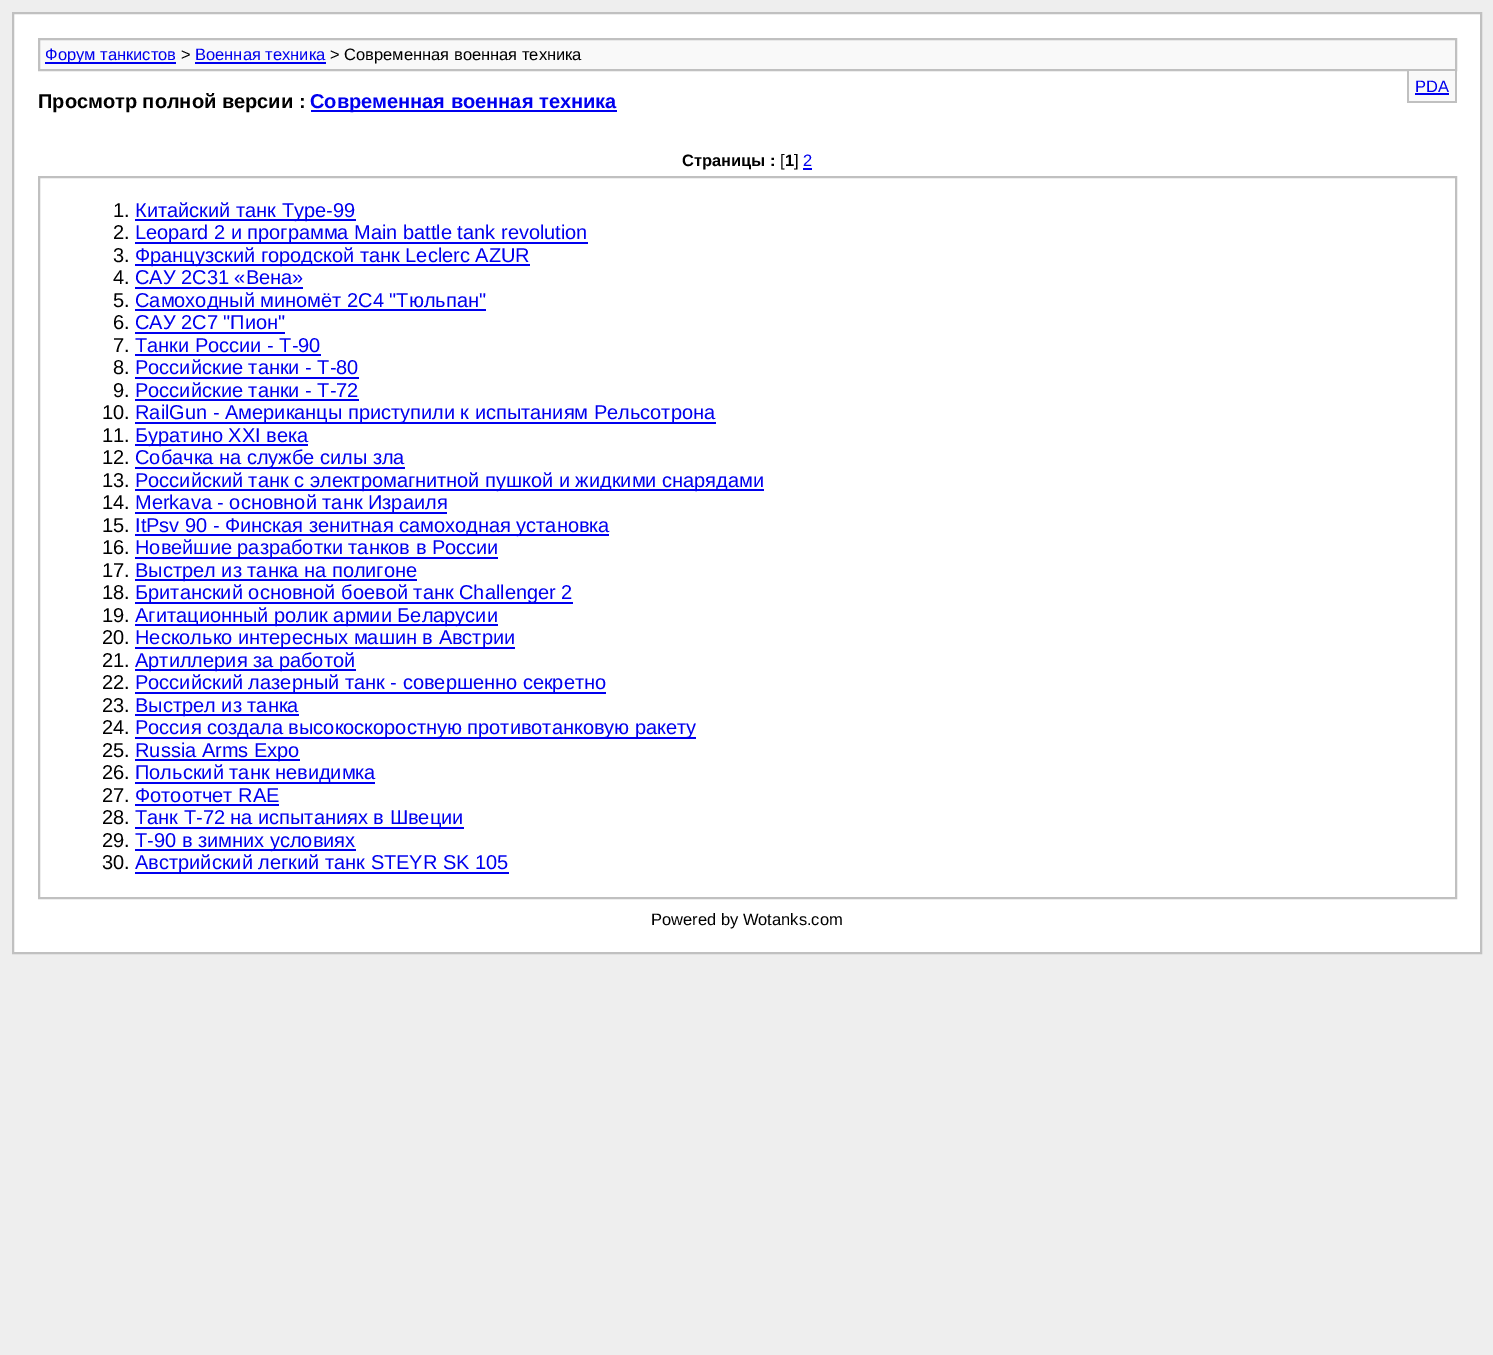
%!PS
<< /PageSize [1493 1355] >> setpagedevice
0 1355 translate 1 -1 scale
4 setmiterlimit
0.933 setgray
0 0 1493 1355 rectfill
1 setgray
newpath 13 13 moveto 1481 13 lineto 1481 953 lineto 13 953 lineto closepath gsave fill grestore
0.753 setgray
2 setlinewidth
stroke
0.976 setgray
newpath 39 39 moveto 1456 39 lineto 1456 70 lineto 39 70 lineto closepath gsave fill grestore
0.753 setgray
stroke
0 0 0.933 setrgbcolor
45 62 131 2 rectfill
/LiberationSans-Regular [16.5 0 0 -16.5 0 0] selectfont
45 60 moveto (Форум танкистов) show
0 setgray
181 60 moveto (>) show
0 0 0.933 setrgbcolor
195 60 moveto (Военная техника) show
195 62 131 2 rectfill
0 setgray
330 60 moveto (> Современная военная техника) show
0.976 setgray
1409 71 46 30 rectfill
0.753 setgray
1455 71 2 31 rectfill
1407 101 50 2 rectfill
1407 71 2 31 rectfill
0 0 0.933 setrgbcolor
1415 92 moveto (PDA) show
1415 93 34 2 rectfill
/LiberationSans-Bold [20 0 0 -20 0 0] selectfont
0 setgray
38 108 moveto (Просмотр полной версии :) show
0 0 0.933 setrgbcolor
311 110 306 2 rectfill
310 108 moveto (Современная военная техника) show
/LiberationSans-Bold [16.5 0 0 -16.5 0 0] selectfont
0 setgray
682 166 moveto (Страницы :) show
/LiberationSans-Regular [16.5 0 0 -16.5 0 0] selectfont
780 166 moveto ([) show
/LiberationSans-Bold [16.5 0 0 -16.5 0 0] selectfont
785 166 moveto (1) show
/LiberationSans-Regular [16.5 0 0 -16.5 0 0] selectfont
794 166 moveto (]) show
0 0 0.933 setrgbcolor
803 166 moveto (2) show
803 168 9 2 rectfill
0.753 setgray
39 177 1417 721 rectstroke
/LiberationSans-Regular [20 0 0 -20 0 0] selectfont
0 setgray
113 217 moveto (1.) show
0 0 0.933 setrgbcolor
135 219 221 2 rectfill
135 217 moveto (Китайский танк Type-99) show
0 setgray
113 239 moveto (2.) show
0 0 0.933 setrgbcolor
135 242 453 2 rectfill
135 239 moveto (Leopard 2 и программа Main battle tank revolution) show
0 setgray
113 262 moveto (3.) show
0 0 0.933 setrgbcolor
135 264 395 2 rectfill
135 262 moveto (Французский городской танк Leclerc AZUR) show
0 setgray
113 284 moveto (4.) show
0 0 0.933 setrgbcolor
135 284 moveto (САУ 2С31 «Вена») show
135 287 168 2 rectfill
0 setgray
113 307 moveto (5.) show
0 0 0.933 setrgbcolor
135 309 351 2 rectfill
135 307 moveto (Самоходный миномёт 2С4 "Тюльпан") show
0 setgray
113 329 moveto (6.) show
0 0 0.933 setrgbcolor
135 329 moveto (САУ 2С7 "Пион") show
135 332 150 2 rectfill
0 setgray
113 352 moveto (7.) show
0 0 0.933 setrgbcolor
135 352 moveto (Танки России - Т-90) show
135 354 186 2 rectfill
0 setgray
113 374 moveto (8.) show
0 0 0.933 setrgbcolor
135 374 moveto (Российские танки - Т-80) show
135 377 224 2 rectfill
0 setgray
113 397 moveto (9.) show
0 0 0.933 setrgbcolor
135 397 moveto (Российские танки - Т-72) show
135 399 224 2 rectfill
0 setgray
102 419 moveto (10.) show
0 0 0.933 setrgbcolor
135 422 581 2 rectfill
135 419 moveto (RailGun - Американцы приступили к испытаниям Рельсотрона) show
0 setgray
102 442 moveto (11.) show
0 0 0.933 setrgbcolor
135 444 173 2 rectfill
135 442 moveto (Буратино ХХI века) show
0 setgray
102 464 moveto (12.) show
0 0 0.933 setrgbcolor
135 467 270 2 rectfill
135 464 moveto (Собачка на службе силы зла) show
0 setgray
102 487 moveto (13.) show
0 0 0.933 setrgbcolor
135 489 629 2 rectfill
135 487 moveto (Российский танк с электромагнитной пушкой и жидкими снарядами) show
0 setgray
102 509 moveto (14.) show
0 0 0.933 setrgbcolor
135 512 312 2 rectfill
135 509 moveto (Merkava - основной танк Израиля) show
0 setgray
102 532 moveto (15.) show
0 0 0.933 setrgbcolor
135 534 474 2 rectfill
135 532 moveto (ItPsv 90 - Финская зенитная самоходная установка) show
0 setgray
102 554 moveto (16.) show
0 0 0.933 setrgbcolor
135 557 363 2 rectfill
135 554 moveto (Новейшие разработки танков в России) show
0 setgray
102 577 moveto (17.) show
0 0 0.933 setrgbcolor
135 579 282 2 rectfill
135 577 moveto (Выстрел из танка на полигоне) show
0 setgray
102 599 moveto (18.) show
0 0 0.933 setrgbcolor
135 602 438 2 rectfill
135 599 moveto (Британский основной боевой танк Challenger 2) show
0 setgray
102 622 moveto (19.) show
0 0 0.933 setrgbcolor
135 624 363 2 rectfill
135 622 moveto (Агитационный ролик армии Беларусии) show
0 setgray
102 644 moveto (20.) show
0 0 0.933 setrgbcolor
135 647 380 2 rectfill
135 644 moveto (Несколько интересных машин в Австрии) show
0 setgray
102 667 moveto (21.) show
0 0 0.933 setrgbcolor
135 669 221 2 rectfill
135 667 moveto (Артиллерия за работой) show
0 setgray
102 689 moveto (22.) show
0 0 0.933 setrgbcolor
135 692 471 2 rectfill
135 689 moveto (Российский лазерный танк - совершенно секретно) show
0 setgray
102 712 moveto (23.) show
0 0 0.933 setrgbcolor
135 714 164 2 rectfill
135 712 moveto (Выстрел из танка) show
0 setgray
102 734 moveto (24.) show
0 0 0.933 setrgbcolor
135 737 561 2 rectfill
135 734 moveto (Россия создала высокоскоростную противотанковую ракету) show
0 setgray
102 757 moveto (25.) show
0 0 0.933 setrgbcolor
135 759 165 2 rectfill
135 757 moveto (Russia Arms Expo) show
0 setgray
102 779 moveto (26.) show
0 0 0.933 setrgbcolor
135 782 240 2 rectfill
135 779 moveto (Польский танк невидимка) show
0 setgray
102 802 moveto (27.) show
0 0 0.933 setrgbcolor
135 802 moveto (Фотоотчет RAE) show
135 804 144 2 rectfill
0 setgray
102 824 moveto (28.) show
0 0 0.933 setrgbcolor
135 827 329 2 rectfill
135 824 moveto (Танк Т-72 на испытаниях в Швеции) show
0 setgray
102 847 moveto (29.) show
0 0 0.933 setrgbcolor
135 849 221 2 rectfill
135 847 moveto (T-90 в зимних условиях) show
0 setgray
102 869 moveto (30.) show
0 0 0.933 setrgbcolor
135 872 374 2 rectfill
135 869 moveto (Австрийский легкий танк STEYR SK 105) show
/LiberationSans-Regular [16.5 0 0 -16.5 0 0] selectfont
0 setgray
651 925 moveto (Powered by Wotanks.com) show
showpage
